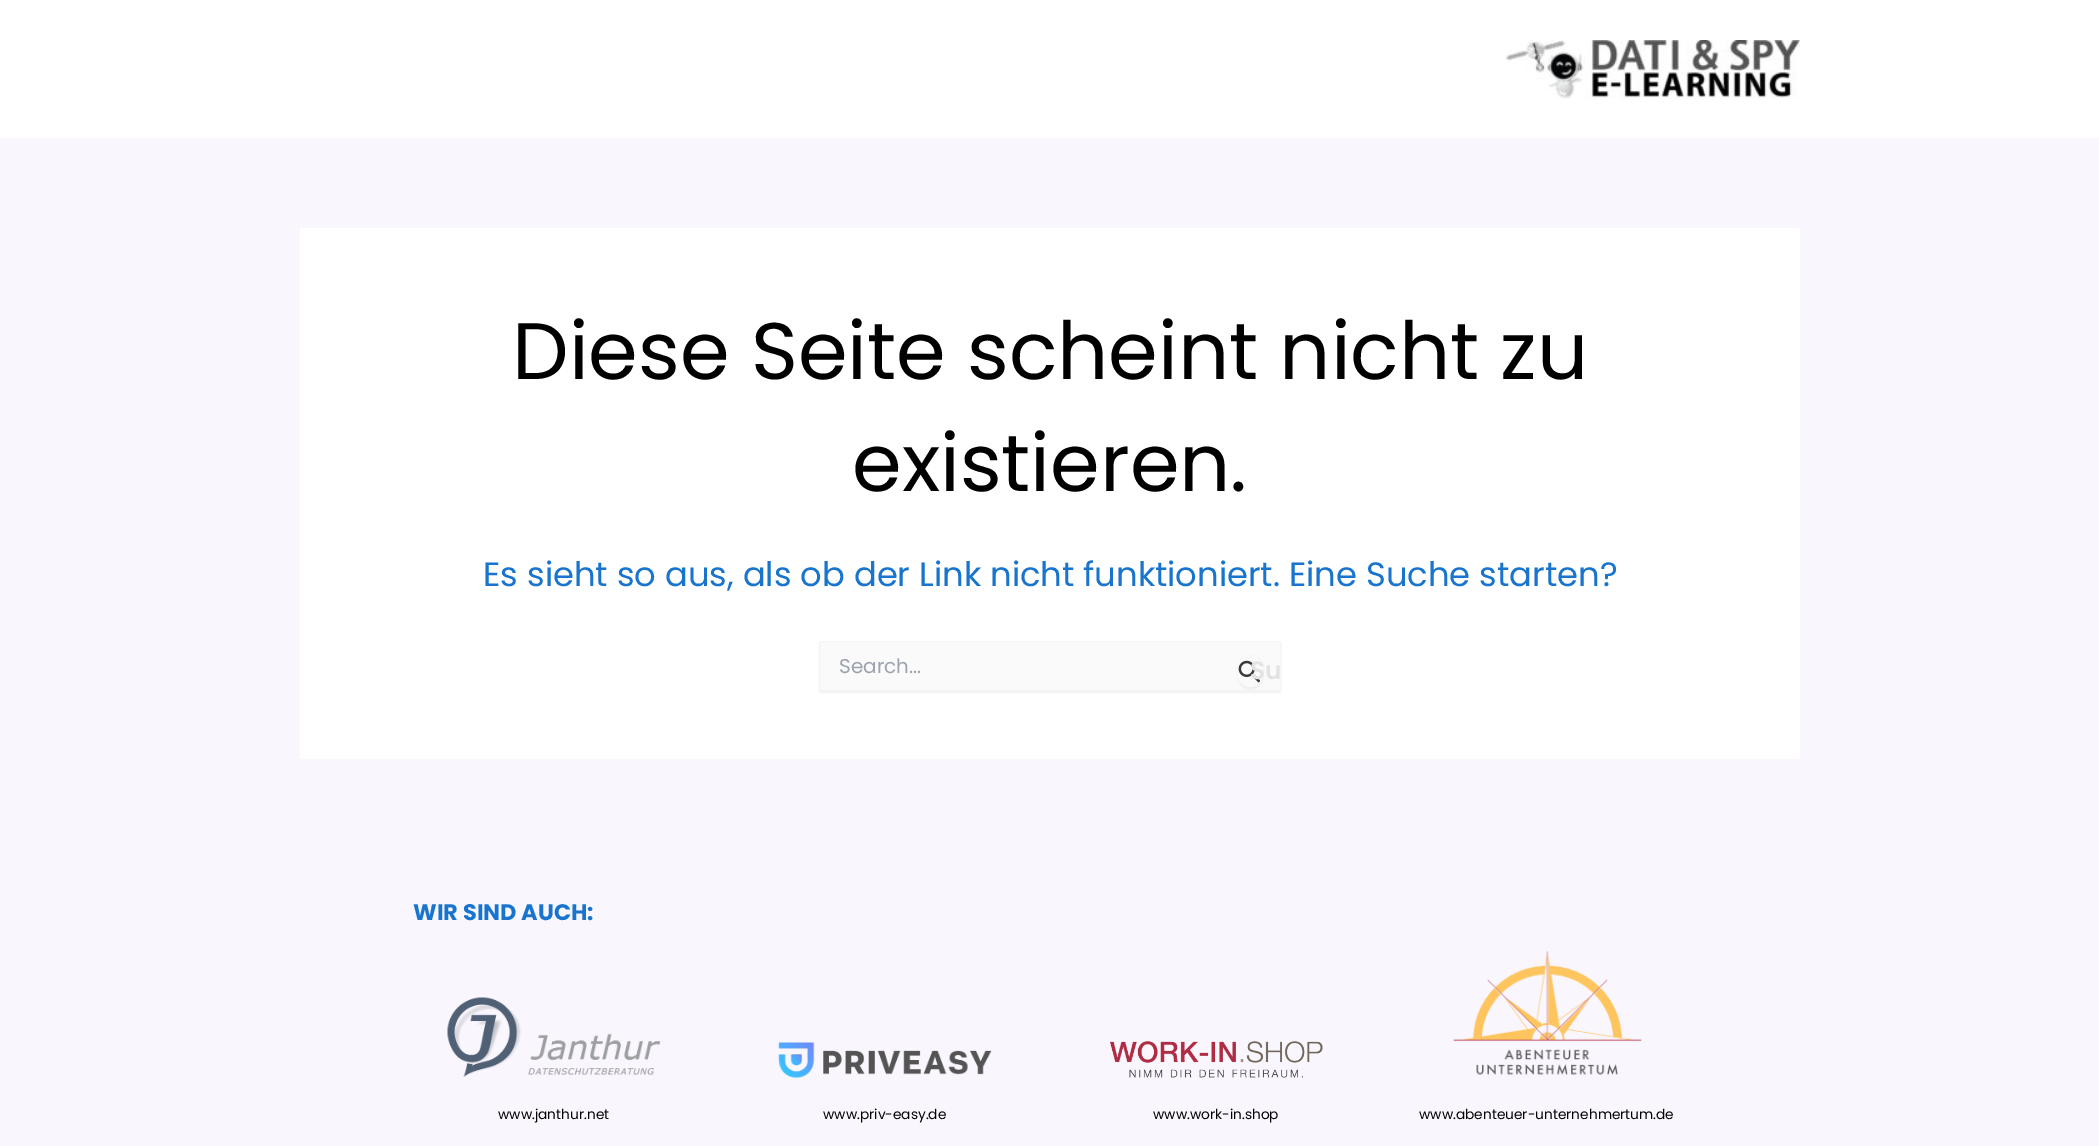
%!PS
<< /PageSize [2099 1146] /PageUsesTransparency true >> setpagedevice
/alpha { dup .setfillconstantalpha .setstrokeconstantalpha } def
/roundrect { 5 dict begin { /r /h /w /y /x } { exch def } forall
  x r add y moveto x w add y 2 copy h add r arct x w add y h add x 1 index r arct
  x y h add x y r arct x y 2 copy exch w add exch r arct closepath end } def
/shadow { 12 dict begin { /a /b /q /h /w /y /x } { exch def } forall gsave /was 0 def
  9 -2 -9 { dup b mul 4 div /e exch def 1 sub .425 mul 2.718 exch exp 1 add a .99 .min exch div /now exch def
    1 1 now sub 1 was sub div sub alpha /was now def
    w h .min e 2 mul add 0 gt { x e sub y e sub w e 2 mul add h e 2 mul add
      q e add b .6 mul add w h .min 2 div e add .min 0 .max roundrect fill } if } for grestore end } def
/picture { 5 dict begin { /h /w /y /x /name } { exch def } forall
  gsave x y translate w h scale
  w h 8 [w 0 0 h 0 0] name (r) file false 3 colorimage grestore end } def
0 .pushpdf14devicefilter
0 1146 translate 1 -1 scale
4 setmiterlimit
0.976 0.965 0.996 setrgbcolor
0 0 2099 1146 rectfill
1 setgray
0 0 2099 138 rectfill
(img1.rgb) 1506 40 294 59 picture
300 228 1500 531 rectfill
/Poppins-Regular [80 0 0 -80 0 0] selectfont
0 setgray
512 379 moveto (Diese Seite scheint nicht zu) show
852 491 moveto (existieren.) show
/Poppins-Regular [33.75 0 0 -33.75 0 0] selectfont
0.094 0.455 0.804 setrgbcolor
483 586 moveto (Es sieht so aus, als ob der Link nicht funktioniert. Eine Suche starten?) show
0 setgray
819 643 462 50 2.5 1 0.05 shadow
0.98 setgray
819.5 641.5 461 49 2 roundrect gsave fill grestore
0.949 0.961 0.969 setrgbcolor
stroke
/Poppins-Regular [20 0 0 -20 0 0] selectfont
0.612 0.639 0.686 setrgbcolor
839 673 moveto (Search...) show
gsave
newpath 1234 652 moveto 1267 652 lineto 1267 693 lineto 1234 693 lineto closepath 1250.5 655 moveto 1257.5 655 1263 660.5 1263 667.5 curveto 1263 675.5 lineto 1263 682.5 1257.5 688 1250.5 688 curveto 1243.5 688 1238 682.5 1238 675.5 curveto 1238 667.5 lineto 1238 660.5 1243.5 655 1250.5 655 curveto closepath eoclip newpath
0 setgray
1238 656 25 33 12.5 1 0.05 shadow
grestore
(img2.rgb) 1238 660 22 23 picture
/Poppins-SemiBold [25 0 0 -25 0 0] selectfont
0.89 setgray
1250 679 moveto (Su) show
/Poppins-Bold [22.5 0 0 -22.5 0 0] selectfont
0.094 0.455 0.804 setrgbcolor
413 920 moveto (WIR SIND AUCH:) show
(img3.rgb) 447 997 213 80 picture
/Poppins-Regular [13.75 0 0 -13.75 0 0] selectfont
0 setgray
498 1119 moveto (www.janthur.net) show
(img4.rgb) 778 1042 214 36 picture
823 1119 moveto (www.priv-easy.de) show
(img5.rgb) 1110 1041 213 37 picture
1153 1119 moveto (www.work-in.shop) show
(img6.rgb) 1453 951 189 124 picture
1419 1119 moveto (www.abenteuer-unternehmertum.de) show
.poppdf14devicefilter showpage
